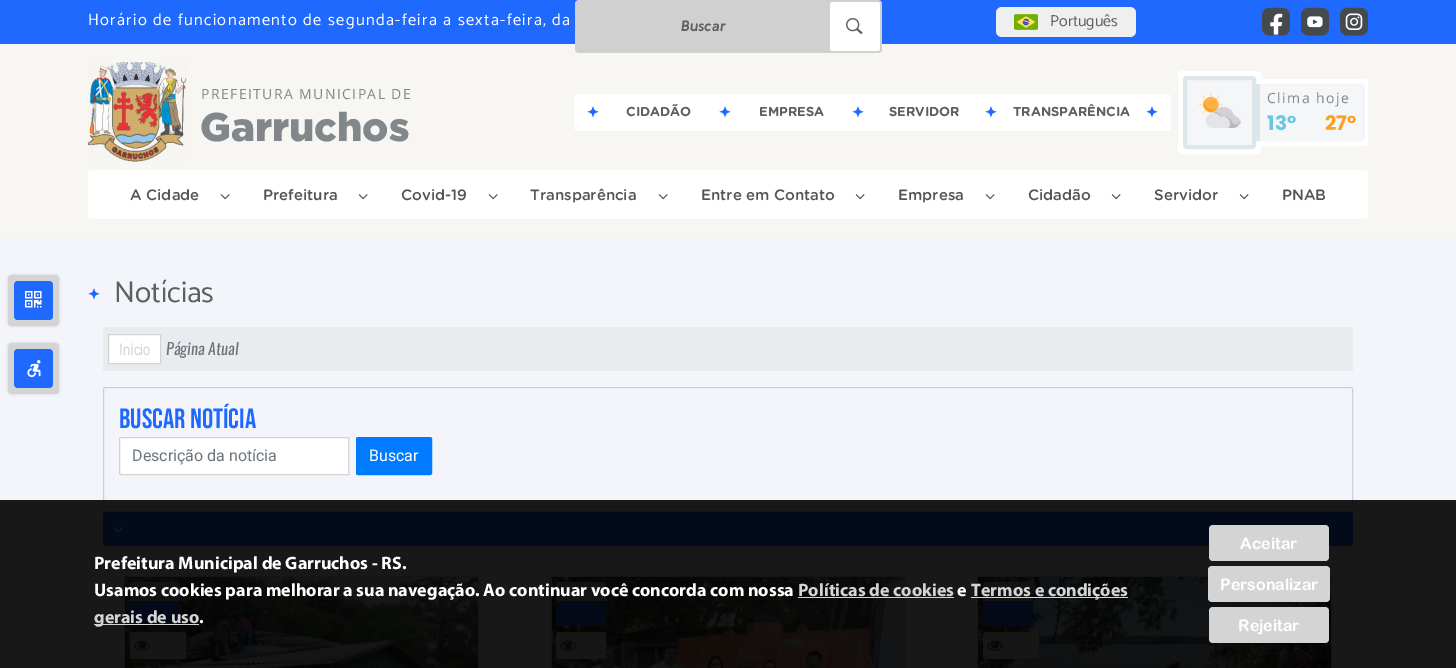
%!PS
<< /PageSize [1456 668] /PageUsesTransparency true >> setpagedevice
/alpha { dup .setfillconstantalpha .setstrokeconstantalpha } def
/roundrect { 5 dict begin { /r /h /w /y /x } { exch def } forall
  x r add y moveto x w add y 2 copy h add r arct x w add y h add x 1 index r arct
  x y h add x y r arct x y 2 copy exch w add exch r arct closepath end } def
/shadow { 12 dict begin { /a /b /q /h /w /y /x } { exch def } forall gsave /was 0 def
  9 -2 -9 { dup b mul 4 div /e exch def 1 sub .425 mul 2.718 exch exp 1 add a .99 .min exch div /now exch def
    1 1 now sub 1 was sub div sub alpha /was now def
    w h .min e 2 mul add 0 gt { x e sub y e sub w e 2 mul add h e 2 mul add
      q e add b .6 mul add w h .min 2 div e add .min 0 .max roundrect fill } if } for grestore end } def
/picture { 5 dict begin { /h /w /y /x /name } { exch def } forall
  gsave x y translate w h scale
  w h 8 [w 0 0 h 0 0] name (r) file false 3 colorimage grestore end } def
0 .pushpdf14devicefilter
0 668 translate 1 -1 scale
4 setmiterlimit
0.969 0.965 0.949 setrgbcolor
0 0 1456 668 rectfill
0.957 0.961 0.98 setrgbcolor
0 237 1456 431 rectfill
0.796 0.816 0.839 setrgbcolor
8 275 51 51 4 1.5 1 shadow
0.831 setgray
8 275 51 51 4 roundrect fill
0.122 0.412 1 setrgbcolor
14 281 39 39 4 roundrect fill
(img1.rgb) 25 291 17 17 picture
0.796 0.816 0.839 setrgbcolor
8 343 51 51 4 1.5 1 shadow
0.831 setgray
8 343 51 51 4 roundrect fill
0.122 0.412 1 setrgbcolor
14 349 39 39 4 roundrect fill
(img2.rgb) 27 360 14 18 picture
0 0 1456 44 rectfill
/Catamaran-Regular [16.5 0 0 -16.5 0 0] selectfont
1 setgray
88 25 moveto 1.3 0 (Horário de funcionamento de segunda-feira a sexta-feira, da) ashow
0.816 setgray
575 0 307 53 4 roundrect fill
/KulimPark-BoldItalic [15 0 0 -15 0 0] selectfont
0.369 0.373 0.38 setrgbcolor
681 31 moveto (Buscar) show
gsave
577 2 303 49 2 roundrect clip newpath
1 setgray
830 1 50 51 4 roundrect fill
grestore
(img3.rgb) 846 18 17 16 picture
0.937 setgray
996 7 140 30 6 roundrect fill
(img4.rgb) 1014 14 24 16 picture
/Catamaran-Regular [16 0 0 -16 0 0] selectfont
0.369 0.373 0.38 setrgbcolor
1050 26 moveto (Português) show
gsave 1262 8 28 28 4 roundrect clip newpath 1276 22 translate 20 20 scale
<< /ShadingType 3 /ColorSpace /DeviceRGB /Coords [0 0 0 0 0 1] /Extend [true true] /Function << /FunctionType 3 /Domain [0 1] /Functions [<< /FunctionType 2 /Domain [0 1] /C0 [1 1 1] /C1 [1 1 1] /N 1 >> << /FunctionType 2 /Domain [0 1] /C0 [1 1 1] /C1 [0.122 0.412 1] /N 1 >> << /FunctionType 2 /Domain [0 1] /C0 [0.122 0.412 1] /C1 [0.122 0.412 1] /N 1 >>] /Bounds [0.6 0.65] /Encode [0 1 0 1 0 1] >> >> shfill grestore
(img5.rgb) 1262 7 28 29 picture
gsave 1301 8 28 28 4 roundrect clip newpath 1315 22 translate 20 20 scale
<< /ShadingType 3 /ColorSpace /DeviceRGB /Coords [0 0 0 0 0 1] /Extend [true true] /Function << /FunctionType 3 /Domain [0 1] /Functions [<< /FunctionType 2 /Domain [0 1] /C0 [1 1 1] /C1 [1 1 1] /N 1 >> << /FunctionType 2 /Domain [0 1] /C0 [1 1 1] /C1 [0.122 0.412 1] /N 1 >> << /FunctionType 2 /Domain [0 1] /C0 [0.122 0.412 1] /C1 [0.122 0.412 1] /N 1 >>] /Bounds [0.6 0.65] /Encode [0 1 0 1 0 1] >> >> shfill grestore
(img6.rgb) 1301 7 28 29 picture
gsave 1340 8 28 28 4 roundrect clip newpath 1354 22 translate 20 20 scale
<< /ShadingType 3 /ColorSpace /DeviceRGB /Coords [0 0 0 0 0 1] /Extend [true true] /Function << /FunctionType 3 /Domain [0 1] /Functions [<< /FunctionType 2 /Domain [0 1] /C0 [1 1 1] /C1 [1 1 1] /N 1 >> << /FunctionType 2 /Domain [0 1] /C0 [1 1 1] /C1 [0.122 0.412 1] /N 1 >> << /FunctionType 2 /Domain [0 1] /C0 [0.122 0.412 1] /C1 [0.122 0.412 1] /N 1 >>] /Bounds [0.6 0.65] /Encode [0 1 0 1 0 1] >> >> shfill grestore
(img7.rgb) 1340 7 28 29 picture
(img8.rgb) 88 62 99 100 picture
/OpenSans-Regular [14 0 0 -14 0 0] selectfont
0.506 0.529 0.545 setrgbcolor
201 99 moveto 1.4 0 (PREFEITURA MUNICIPAL DE) ashow
/Gotham-Black [40 0 0 -40 0 0] selectfont
200 141 moveto (Garruchos) show
1 setgray
574 94 597 37 4 roundrect fill
(img9.rgb) 587 106 12 12 picture
/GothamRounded-Bold [13 0 0 -13 0 0] selectfont
0.369 0.373 0.38 setrgbcolor
626 116 moveto (CIDADÃO) show
(img9.rgb) 719 106 12 12 picture
759 116 moveto (EMPRESA) show
(img9.rgb) 852 106 12 12 picture
889 116 moveto (SERVIDOR) show
(img9.rgb) 985 106 12 12 picture
1013 116 moveto (TRANSPARÊNCIA) show
(img9.rgb) 1146 106 12 12 picture
1 setgray
1180.5 73.5 78 78 1.5 roundrect gsave fill grestore
5 setlinewidth
stroke
0.957 0.965 0.973 setrgbcolor
1185 78 69 69 2 roundrect gsave fill grestore
0.867 0.902 0.922 setrgbcolor
4 setlinewidth
stroke
(img10.rgb) 1198 92 43 36 picture
1 setgray
newpath 1263.5 81.5 moveto 1364 81.5 lineto 1365 81.5 1365.5 82 1365.5 83 curveto 1365.5 142 lineto 1365.5 143 1365 143.5 1364 143.5 curveto 1263.5 143.5 lineto closepath gsave fill grestore
5 setlinewidth
stroke
0.925 0.933 0.941 setrgbcolor
1257 84 107 57 4 0.5 1 shadow
0.957 0.965 0.973 setrgbcolor
newpath 1256 84 moveto 1359 84 lineto 1361 84 1363 86 1363 88 curveto 1363 137 lineto 1363 139 1361 141 1359 141 curveto 1256 141 lineto closepath fill
0.867 0.902 0.922 setrgbcolor
1256 84 4 57 rectfill
/OpenSans-Regular [14 0 0 -14 0 0] selectfont
0.506 0.529 0.545 setrgbcolor
1267 103 moveto 1.4 0 (Clima hoje) ashow
/Poppins-Bold [20 0 0 -20 0 0] selectfont
0.4 0.784 0.894 setrgbcolor
1267 130 moveto (13°) show
0.988 0.627 0.133 setrgbcolor
1325 130 moveto (27°) show
1 setgray
88 170 1280 49 4 roundrect fill
/GothamRounded-Medium [15 0 0 -15 0 0] selectfont
0.333 setgray
130 200 moveto (A Cidade) show
(img11.rgb) 220 194 10 6 picture
263 200 moveto (Prefeitura) show
(img11.rgb) 358 194 10 6 picture
401 200 moveto (Covid-19) show
(img11.rgb) 488 194 10 6 picture
530 200 moveto (Transparência) show
(img11.rgb) 658 194 10 6 picture
701 200 moveto (Entre em Contato) show
(img11.rgb) 855 194 10 6 picture
898 200 moveto (Empresa) show
(img11.rgb) 985 194 10 6 picture
1028 200 moveto (Cidadão) show
(img11.rgb) 1111 194 10 6 picture
1154 200 moveto (Servidor) show
(img11.rgb) 1239 194 10 6 picture
1282 200 moveto (PNAB) show
(img12.rgb) 88 288 12 12 picture
/Catamaran-Regular [30 0 0 -30 0 0] selectfont
0.369 0.373 0.38 setrgbcolor
114 302 moveto (Notícias) show
0.914 0.925 0.937 setrgbcolor
103 327 1250 44 rectfill
1 setgray
newpath 108.5 334.5 moveto 160.5 334.5 lineto 160.5 363.5 lineto 108.5 363.5 lineto closepath gsave fill grestore
0.831 setgray
1 setlinewidth
stroke
/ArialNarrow-Regular [16 0 0 -16 0 0] selectfont
119 355 moveto (Início) show
/Oswald-Italic [16 0 0 -16 0 0] selectfont
0.424 0.459 0.49 setrgbcolor
166 355 moveto (Página Atual) show
0.788 0.808 0.882 setrgbcolor
103.5 387.5 1249 119 1.5 roundrect stroke
/BebasNeue-Regular [28 0 0 -28 0 0] selectfont
0.122 0.412 1 setrgbcolor
119 428 moveto (Buscar Notícia) show
1 setgray
newpath 121 437.5 moveto 348.5 437.5 lineto 348.5 474.5 lineto 121 474.5 lineto 120 474.5 119.5 474 119.5 473 curveto 119.5 439 lineto 119.5 438 120 437.5 121 437.5 curveto closepath gsave fill grestore
0.831 setgray
stroke
/Roboto-Regular [16 0 0 -16 0 0] selectfont
0.424 0.459 0.49 setrgbcolor
132 461 moveto (Descrição da notícia) show
0 0.482 1 setrgbcolor
356.5 437.5 75 37 1.5 roundrect gsave fill grestore
stroke
1 setgray
369 461 moveto (Buscar) show
0.122 0.412 1 setrgbcolor
103 512 1250 34 2 roundrect fill
(img13.rgb) 113 527 10 6 picture
0.788 0.808 0.882 setrgbcolor
124.5 576.5 354 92 rectstroke
(img14.rgb) 125 577 353 91 picture
0.749 setgray
newpath 133 582 moveto 177 582 lineto 178.5 582 180 583.5 180 585 curveto 180 601 lineto 130 601 lineto 130 585 lineto 130 583.5 131.5 582 133 582 curveto closepath fill
0.11 0.373 0.902 setrgbcolor
newpath 130 601 moveto 180 601 lineto 180 623 lineto 180 624.5 178.5 626 177 626 curveto 133 626 lineto 131.5 626 130 624.5 130 623 curveto closepath fill
0.871 setgray
130 632 56 27 3 roundrect fill
(img15.rgb) 134 640 16 11 picture
0.902 setgray
551 577 1 91 rectfill
0.788 0.808 0.882 setrgbcolor
550.5 576.5 354 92 rectstroke
(img16.rgb) 552 577 352 91 picture
0.749 setgray
newpath 559 582 moveto 603 582 lineto 604.5 582 606 583.5 606 585 curveto 606 601 lineto 556 601 lineto 556 585 lineto 556 583.5 557.5 582 559 582 curveto closepath fill
0.11 0.373 0.902 setrgbcolor
newpath 556 601 moveto 606 601 lineto 606 623 lineto 606 624.5 604.5 626 603 626 curveto 559 626 lineto 557.5 626 556 624.5 556 623 curveto closepath fill
0.871 setgray
556 632 50 27 3 roundrect fill
(img15.rgb) 560 640 16 11 picture
0.788 0.808 0.882 setrgbcolor
977.5 576.5 354 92 rectstroke
(img17.rgb) 978 577 353 91 picture
0.749 setgray
newpath 986 582 moveto 1030 582 lineto 1031.5 582 1033 583.5 1033 585 curveto 1033 601 lineto 983 601 lineto 983 585 lineto 983 583.5 984.5 582 986 582 curveto closepath fill
0.11 0.373 0.902 setrgbcolor
newpath 983 601 moveto 1033 601 lineto 1033 623 lineto 1033 624.5 1031.5 626 1030 626 curveto 986 626 lineto 984.5 626 983 624.5 983 623 curveto closepath fill
0.871 setgray
983 632 56 27 3 roundrect fill
(img15.rgb) 987 640 16 11 picture
0.9 alpha
0 setgray
0 500 1456 168 rectfill
/Myriad-Bold [18 0 0 -18 0 0] selectfont
1 alpha
1 setgray
94 569 moveto (Prefeitura Municipal de Garruchos - RS.) show
94 596 moveto (Usamos cookies para melhorar a sua navegação. Ao continuar você concorda com nossa) show
0.831 setgray
798 596 moveto (Políticas de cookies) show
798 597 156 1 rectfill
1 setgray
957 596 moveto (e) show
0.831 setgray
971 597 157 1 rectfill
971 596 moveto (Termos e condições) show
94 624 105 1 rectfill
94 623 moveto (gerais de uso) show
1 setgray
199 623 moveto (.) show
0.831 setgray
1209 525 120 36 4 roundrect fill
/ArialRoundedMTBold-Bold [16 0 0 -16 0 0] selectfont
1 setgray
1240 549 moveto (Aceitar) show
0.831 setgray
1208 566 122 36 4 roundrect fill
1 setgray
1220 590 moveto (Personalizar) show
0.831 setgray
1209 607 120 36 4 roundrect fill
1 setgray
1238 631 moveto (Rejeitar) show
.poppdf14devicefilter showpage
